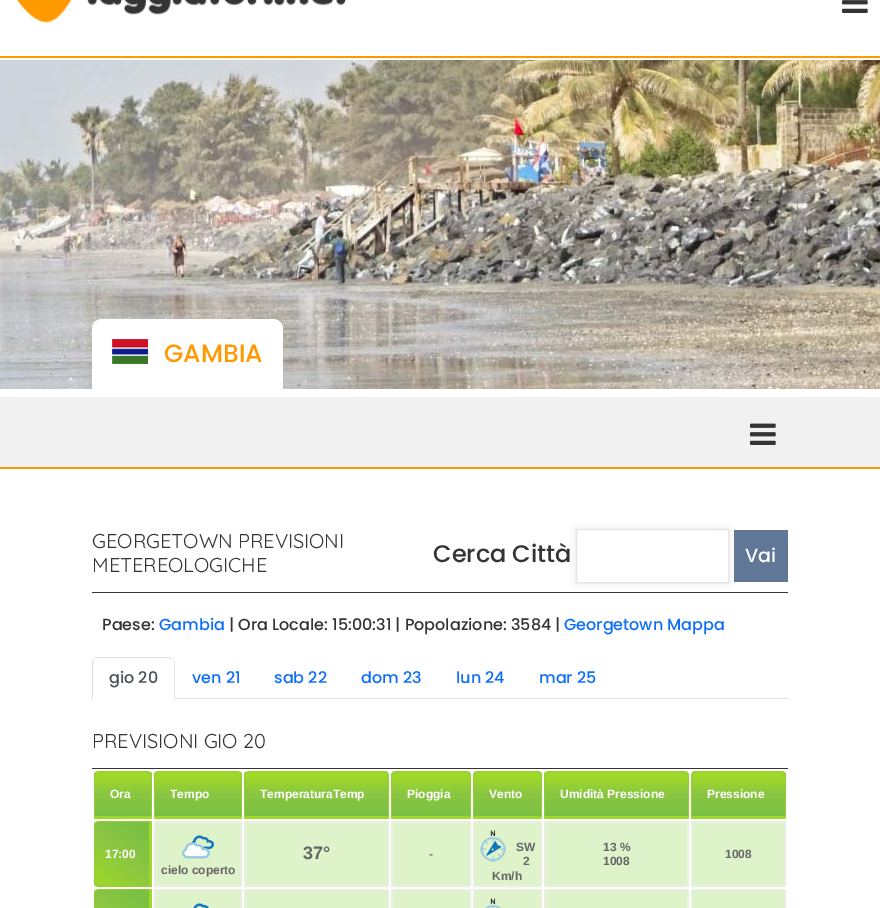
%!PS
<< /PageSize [880 908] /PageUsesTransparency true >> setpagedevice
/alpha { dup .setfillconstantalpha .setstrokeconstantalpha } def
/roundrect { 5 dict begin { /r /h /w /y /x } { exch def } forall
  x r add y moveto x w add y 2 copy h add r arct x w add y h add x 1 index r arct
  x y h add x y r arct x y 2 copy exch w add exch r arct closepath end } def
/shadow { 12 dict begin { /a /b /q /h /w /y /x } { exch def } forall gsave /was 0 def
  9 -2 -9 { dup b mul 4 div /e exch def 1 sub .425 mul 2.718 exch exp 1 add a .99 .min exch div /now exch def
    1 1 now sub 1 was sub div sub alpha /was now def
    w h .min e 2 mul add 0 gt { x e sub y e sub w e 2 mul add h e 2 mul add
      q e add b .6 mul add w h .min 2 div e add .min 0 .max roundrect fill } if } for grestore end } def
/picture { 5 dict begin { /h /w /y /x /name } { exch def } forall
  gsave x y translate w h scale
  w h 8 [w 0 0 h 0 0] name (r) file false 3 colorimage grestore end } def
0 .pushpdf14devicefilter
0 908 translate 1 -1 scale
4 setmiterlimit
1 setgray
0 0 880 908 rectfill
1 0.6 0 setrgbcolor
0 56 880 2 rectfill
(img1.rgb) 16 0 330 23 picture
(img2.rgb) 842 0 26 13 picture
(img3.rgb) 0 60 880 329 picture
1 setgray
newpath 102 319 moveto 273 319 lineto 278.5 319 283 323.5 283 329 curveto 283 389 lineto 92 389 lineto 92 329 lineto 92 323.5 96.5 319 102 319 curveto closepath fill
(img4.rgb) 112 339 36 25 picture
/Poppins-Medium [25 0 0 -25 0 0] selectfont
1 0.6 0 setrgbcolor
164 362 moveto (GAMBIA) show
0.945 setgray
0 397 880 70 rectfill
1 0.6 0 setrgbcolor
0 467 880 2 rectfill
(img5.rgb) 750 423 26 22 picture
0.204 setgray
92 592 696 1 rectfill
/Quicksand-Regular [20 0 0 -20 0 0] selectfont
92 548 moveto (GEORGETOWN PREVISIONI) show
92 572 moveto (METEREOLOGICHE) show
/Poppins-Medium [16 0 0 -16 0 0] selectfont
102 630 moveto (Paese:) show
0.051 0.431 0.992 setrgbcolor
159 630 moveto (Gambia) show
0.204 setgray
229 630 moveto (| Ora Locale: 15:00:31 | Popolazione: 3584 |) show
0.051 0.431 0.992 setrgbcolor
564 630 moveto (Georgetown Mappa) show
0.871 0.886 0.902 setrgbcolor
175 698 613 1 rectfill
newpath 98 657 moveto 96 657 95 658 94 659 curveto 97 658 lineto 170 658 lineto 173 659 lineto 172 658 170 657 169 657 curveto closepath fill
newpath 175 699 moveto 175 663 lineto 175 662 174 660 173 659 curveto 174 660 174 662 174 663 curveto 174 698 lineto closepath fill
1 setgray
newpath 175 699 moveto 174 698 lineto 93 698 lineto 92 699 lineto closepath fill
0.871 0.886 0.902 setrgbcolor
newpath 92 699 moveto 93 698 lineto 93 663 lineto 93 662 94 660 94 659 curveto 93 660 92 662 92 663 curveto closepath fill
0.286 0.314 0.341 setrgbcolor
109 683 moveto (gio 20) show
0.051 0.431 0.992 setrgbcolor
192 683 moveto (ven 21) show
274 683 moveto (sab 22) show
361 683 moveto (dom 23) show
456 683 moveto (lun 24) show
539 683 moveto (mar 25) show
0.204 setgray
92 768 696 1 rectfill
/Quicksand-Regular [20 0 0 -20 0 0] selectfont
92 748 moveto (PREVISIONI GIO 20) show
gsave newpath 99 772 moveto 147 772 lineto 149 772 151 774 151 776 curveto 151 816 lineto 95 816 lineto 95 776 lineto 95 774 97 772 99 772 curveto closepath clip newpath
<< /ShadingType 2 /ColorSpace /DeviceRGB /Coords [95 816 95 772] /Extend [true true] /Function << /FunctionType 3 /Domain [0 1] /Functions [<< /FunctionType 2 /Domain [0 1] /C0 [0.482 0.753 0.263] /C1 [0.482 0.753 0.263] /N 1 >> << /FunctionType 2 /Domain [0 1] /C0 [0.482 0.753 0.263] /C1 [0.545 0.776 0.259] /N 1 >> << /FunctionType 2 /Domain [0 1] /C0 [0.545 0.776 0.259] /C1 [0.62 0.851 0.161] /N 1 >> << /FunctionType 2 /Domain [0 1] /C0 [0.62 0.851 0.161] /C1 [0.62 0.851 0.161] /N 1 >>] /Bounds [0.02 0.51 0.87] /Encode [0 1 0 1 0 1 0 1] >> >> shfill grestore
0.576 0.808 0.216 setrgbcolor
newpath 99 771 moveto 98 771 96 772 95 772 curveto 96 773 lineto 97 772 98 772 99 772 curveto 147 772 lineto 148 772 149 772 150 773 curveto 151 772 lineto 150 772 148 771 147 771 curveto closepath fill
newpath 152 819 moveto 152 776 lineto 152 774 152 773 151 772 curveto 150 773 lineto 150 774 151 775 151 776 curveto 151 816 lineto closepath fill
0.62 0.851 0.161 setrgbcolor
newpath 152 819 moveto 151 816 lineto 95 816 lineto 94 819 lineto closepath fill
0.576 0.808 0.216 setrgbcolor
newpath 94 819 moveto 95 816 lineto 95 776 lineto 95 775 96 774 96 773 curveto 95 772 lineto 94 773 94 774 94 776 curveto closepath fill
/LiberationSans-Bold [12 0 0 -12 0 0] selectfont
1 setgray
110 798 moveto (Ora) show
gsave newpath 159 772 moveto 237 772 lineto 239 772 241 774 241 776 curveto 241 816 lineto 155 816 lineto 155 776 lineto 155 774 157 772 159 772 curveto closepath clip newpath
<< /ShadingType 2 /ColorSpace /DeviceRGB /Coords [155 816 155 772] /Extend [true true] /Function << /FunctionType 3 /Domain [0 1] /Functions [<< /FunctionType 2 /Domain [0 1] /C0 [0.482 0.753 0.263] /C1 [0.482 0.753 0.263] /N 1 >> << /FunctionType 2 /Domain [0 1] /C0 [0.482 0.753 0.263] /C1 [0.545 0.776 0.259] /N 1 >> << /FunctionType 2 /Domain [0 1] /C0 [0.545 0.776 0.259] /C1 [0.62 0.851 0.161] /N 1 >> << /FunctionType 2 /Domain [0 1] /C0 [0.62 0.851 0.161] /C1 [0.62 0.851 0.161] /N 1 >>] /Bounds [0.02 0.51 0.87] /Encode [0 1 0 1 0 1 0 1] >> >> shfill grestore
0.576 0.808 0.216 setrgbcolor
newpath 159 771 moveto 158 771 156 772 155 772 curveto 156 773 lineto 159 772 lineto 237 772 lineto 240 773 lineto 241 772 lineto 240 772 238 771 237 771 curveto closepath fill
newpath 242 819 moveto 242 776 lineto 242 774 242 773 241 772 curveto 240 773 lineto 240 774 241 775 241 776 curveto 241 816 lineto closepath fill
0.62 0.851 0.161 setrgbcolor
newpath 242 819 moveto 241 816 lineto 155 816 lineto 154 819 lineto closepath fill
0.576 0.808 0.216 setrgbcolor
newpath 154 819 moveto 155 816 lineto 155 776 lineto 155 775 156 774 156 773 curveto 155 772 lineto 154 773 154 774 154 776 curveto closepath fill
1 setgray
170 798 moveto (Tempo) show
gsave newpath 249 772 moveto 384 772 lineto 386 772 388 774 388 776 curveto 388 816 lineto 245 816 lineto 245 776 lineto 245 774 247 772 249 772 curveto closepath clip newpath
<< /ShadingType 2 /ColorSpace /DeviceRGB /Coords [245 816 245 772] /Extend [true true] /Function << /FunctionType 3 /Domain [0 1] /Functions [<< /FunctionType 2 /Domain [0 1] /C0 [0.482 0.753 0.263] /C1 [0.482 0.753 0.263] /N 1 >> << /FunctionType 2 /Domain [0 1] /C0 [0.482 0.753 0.263] /C1 [0.545 0.776 0.259] /N 1 >> << /FunctionType 2 /Domain [0 1] /C0 [0.545 0.776 0.259] /C1 [0.62 0.851 0.161] /N 1 >> << /FunctionType 2 /Domain [0 1] /C0 [0.62 0.851 0.161] /C1 [0.62 0.851 0.161] /N 1 >>] /Bounds [0.02 0.51 0.87] /Encode [0 1 0 1 0 1 0 1] >> >> shfill grestore
0.576 0.808 0.216 setrgbcolor
newpath 249 771 moveto 248 771 246 772 245 772 curveto 246 773 lineto 247 772 248 772 249 772 curveto 384 772 lineto 385 772 386 772 387 773 curveto 388 772 lineto 387 772 386 771 384 771 curveto closepath fill
newpath 389 819 moveto 389 776 lineto 389 774 388 773 388 772 curveto 387 773 lineto 388 774 388 775 388 776 curveto 388 816 lineto closepath fill
0.62 0.851 0.161 setrgbcolor
newpath 389 819 moveto 388 816 lineto 245 816 lineto 244 819 lineto closepath fill
0.576 0.808 0.216 setrgbcolor
newpath 244 819 moveto 245 816 lineto 245 776 lineto 245 775 246 774 246 773 curveto 245 772 lineto 244 773 244 774 244 776 curveto closepath fill
1 setgray
260 798 moveto (TemperaturaTemp) show
gsave newpath 396 772 moveto 466 772 lineto 468 772 470 774 470 776 curveto 470 816 lineto 392 816 lineto 392 776 lineto 392 774 394 772 396 772 curveto closepath clip newpath
<< /ShadingType 2 /ColorSpace /DeviceRGB /Coords [392 816 392 772] /Extend [true true] /Function << /FunctionType 3 /Domain [0 1] /Functions [<< /FunctionType 2 /Domain [0 1] /C0 [0.482 0.753 0.263] /C1 [0.482 0.753 0.263] /N 1 >> << /FunctionType 2 /Domain [0 1] /C0 [0.482 0.753 0.263] /C1 [0.545 0.776 0.259] /N 1 >> << /FunctionType 2 /Domain [0 1] /C0 [0.545 0.776 0.259] /C1 [0.62 0.851 0.161] /N 1 >> << /FunctionType 2 /Domain [0 1] /C0 [0.62 0.851 0.161] /C1 [0.62 0.851 0.161] /N 1 >>] /Bounds [0.02 0.51 0.87] /Encode [0 1 0 1 0 1 0 1] >> >> shfill grestore
0.576 0.808 0.216 setrgbcolor
newpath 396 771 moveto 394 771 393 772 392 772 curveto 393 773 lineto 396 772 lineto 466 772 lineto 469 773 lineto 470 772 lineto 469 772 468 771 466 771 curveto closepath fill
newpath 471 819 moveto 471 776 lineto 471 774 470 773 470 772 curveto 469 773 lineto 470 774 470 775 470 776 curveto 470 816 lineto closepath fill
0.62 0.851 0.161 setrgbcolor
newpath 471 819 moveto 470 816 lineto 392 816 lineto 391 819 lineto closepath fill
0.576 0.808 0.216 setrgbcolor
newpath 391 819 moveto 392 816 lineto 392 776 lineto 392 775 392 774 393 773 curveto 392 772 lineto 392 773 391 774 391 776 curveto closepath fill
1 setgray
407 798 moveto (Pioggia) show
gsave newpath 478 772 moveto 537 772 lineto 539 772 541 774 541 776 curveto 541 816 lineto 474 816 lineto 474 776 lineto 474 774 476 772 478 772 curveto closepath clip newpath
<< /ShadingType 2 /ColorSpace /DeviceRGB /Coords [474 816 474 772] /Extend [true true] /Function << /FunctionType 3 /Domain [0 1] /Functions [<< /FunctionType 2 /Domain [0 1] /C0 [0.482 0.753 0.263] /C1 [0.482 0.753 0.263] /N 1 >> << /FunctionType 2 /Domain [0 1] /C0 [0.482 0.753 0.263] /C1 [0.545 0.776 0.259] /N 1 >> << /FunctionType 2 /Domain [0 1] /C0 [0.545 0.776 0.259] /C1 [0.62 0.851 0.161] /N 1 >> << /FunctionType 2 /Domain [0 1] /C0 [0.62 0.851 0.161] /C1 [0.62 0.851 0.161] /N 1 >>] /Bounds [0.02 0.51 0.87] /Encode [0 1 0 1 0 1 0 1] >> >> shfill grestore
0.576 0.808 0.216 setrgbcolor
newpath 478 771 moveto 476 771 475 772 474 772 curveto 475 773 lineto 478 772 lineto 537 772 lineto 540 773 lineto 541 772 lineto 540 772 538 771 537 771 curveto closepath fill
newpath 542 819 moveto 542 776 lineto 542 774 542 773 541 772 curveto 540 773 lineto 540 774 541 775 541 776 curveto 541 816 lineto closepath fill
0.62 0.851 0.161 setrgbcolor
newpath 542 819 moveto 541 816 lineto 474 816 lineto 473 819 lineto closepath fill
0.576 0.808 0.216 setrgbcolor
newpath 473 819 moveto 474 816 lineto 474 776 lineto 474 775 474 774 475 773 curveto 474 772 lineto 474 773 473 774 473 776 curveto closepath fill
1 setgray
489 798 moveto (Vento) show
gsave newpath 549 772 moveto 684 772 lineto 686 772 688 774 688 776 curveto 688 816 lineto 545 816 lineto 545 776 lineto 545 774 547 772 549 772 curveto closepath clip newpath
<< /ShadingType 2 /ColorSpace /DeviceRGB /Coords [545 816 545 772] /Extend [true true] /Function << /FunctionType 3 /Domain [0 1] /Functions [<< /FunctionType 2 /Domain [0 1] /C0 [0.482 0.753 0.263] /C1 [0.482 0.753 0.263] /N 1 >> << /FunctionType 2 /Domain [0 1] /C0 [0.482 0.753 0.263] /C1 [0.545 0.776 0.259] /N 1 >> << /FunctionType 2 /Domain [0 1] /C0 [0.545 0.776 0.259] /C1 [0.62 0.851 0.161] /N 1 >> << /FunctionType 2 /Domain [0 1] /C0 [0.62 0.851 0.161] /C1 [0.62 0.851 0.161] /N 1 >>] /Bounds [0.02 0.51 0.87] /Encode [0 1 0 1 0 1 0 1] >> >> shfill grestore
0.576 0.808 0.216 setrgbcolor
newpath 549 771 moveto 548 771 546 772 545 772 curveto 546 773 lineto 547 772 548 772 549 772 curveto 684 772 lineto 685 772 686 772 687 773 curveto 688 772 lineto 687 772 686 771 684 771 curveto closepath fill
newpath 689 819 moveto 689 776 lineto 689 774 688 773 688 772 curveto 687 773 lineto 688 774 688 775 688 776 curveto 688 816 lineto closepath fill
0.62 0.851 0.161 setrgbcolor
newpath 689 819 moveto 688 816 lineto 545 816 lineto 544 819 lineto closepath fill
0.576 0.808 0.216 setrgbcolor
newpath 544 819 moveto 545 816 lineto 545 776 lineto 545 775 546 774 546 773 curveto 545 772 lineto 544 773 544 774 544 776 curveto closepath fill
1 setgray
560 798 moveto (Umidità Pressione) show
gsave newpath 696 772 moveto 781 772 lineto 783 772 785 774 785 776 curveto 785 816 lineto 692 816 lineto 692 776 lineto 692 774 694 772 696 772 curveto closepath clip newpath
<< /ShadingType 2 /ColorSpace /DeviceRGB /Coords [692 816 692 772] /Extend [true true] /Function << /FunctionType 3 /Domain [0 1] /Functions [<< /FunctionType 2 /Domain [0 1] /C0 [0.482 0.753 0.263] /C1 [0.482 0.753 0.263] /N 1 >> << /FunctionType 2 /Domain [0 1] /C0 [0.482 0.753 0.263] /C1 [0.545 0.776 0.259] /N 1 >> << /FunctionType 2 /Domain [0 1] /C0 [0.545 0.776 0.259] /C1 [0.62 0.851 0.161] /N 1 >> << /FunctionType 2 /Domain [0 1] /C0 [0.62 0.851 0.161] /C1 [0.62 0.851 0.161] /N 1 >>] /Bounds [0.02 0.51 0.87] /Encode [0 1 0 1 0 1 0 1] >> >> shfill grestore
0.576 0.808 0.216 setrgbcolor
newpath 696 771 moveto 694 771 693 772 692 772 curveto 693 773 lineto 696 772 lineto 781 772 lineto 784 773 lineto 785 772 lineto 784 772 782 771 781 771 curveto closepath fill
newpath 786 819 moveto 786 776 lineto 786 774 786 773 785 772 curveto 784 773 lineto 784 774 785 775 785 776 curveto 785 816 lineto closepath fill
0.62 0.851 0.161 setrgbcolor
newpath 786 819 moveto 785 816 lineto 692 816 lineto 691 819 lineto closepath fill
0.576 0.808 0.216 setrgbcolor
newpath 691 819 moveto 692 816 lineto 692 776 lineto 692 775 692 774 693 773 curveto 692 772 lineto 692 773 691 774 691 776 curveto closepath fill
1 setgray
707 798 moveto (Pressione) show
gsave newpath 99 822 moveto 149 822 lineto 149 886 lineto 99 886 lineto 97 886 95 884 95 882 curveto 95 826 lineto 95 824 97 822 99 822 curveto closepath clip newpath
<< /ShadingType 2 /ColorSpace /DeviceRGB /Coords [95 886 149 822] /Extend [true true] /Function << /FunctionType 3 /Domain [0 1] /Functions [<< /FunctionType 2 /Domain [0 1] /C0 [0.62 0.851 0.161] /C1 [0.62 0.851 0.161] /N 1 >> << /FunctionType 2 /Domain [0 1] /C0 [0.62 0.851 0.161] /C1 [0.545 0.776 0.259] /N 1 >> << /FunctionType 2 /Domain [0 1] /C0 [0.545 0.776 0.259] /C1 [0.482 0.753 0.263] /N 1 >> << /FunctionType 2 /Domain [0 1] /C0 [0.482 0.753 0.263] /C1 [0.482 0.753 0.263] /N 1 >>] /Bounds [0.02 0.51 0.87] /Encode [0 1 0 1 0 1 0 1] >> >> shfill grestore
0.576 0.808 0.216 setrgbcolor
newpath 99 821 moveto 98 821 96 822 95 822 curveto 96 823 lineto 99 822 lineto 149 822 lineto 152 821 lineto closepath fill
0.62 0.851 0.161 setrgbcolor
newpath 152 821 moveto 149 822 lineto 149 886 lineto 152 887 lineto closepath fill
0.576 0.808 0.216 setrgbcolor
newpath 152 887 moveto 147 885 142 886 137 886 curveto 132 886 99 887 96 884 curveto 95 886 lineto 96 886 98 887 99 887 curveto closepath fill
newpath 94 826 moveto 94 882 lineto 94 884 94 885 95 886 curveto 96 884 lineto 95 883 lineto 95 825 lineto 96 823 lineto 95 822 lineto 94 823 94 824 94 826 curveto closepath fill
1 setgray
105 858 moveto (17:00) show
0.871 0.953 0.792 setrgbcolor
245 822 143 64 1 roundrect gsave fill grestore
0.906 0.937 0.878 setrgbcolor
2 setlinewidth
stroke
/LiberationSans-Bold [18 0 0 -18 0 0] selectfont
0.4 setgray
303 859 moveto (37°) show
0.871 0.953 0.792 setrgbcolor
392 822 78 64 1 roundrect gsave fill grestore
0.906 0.937 0.878 setrgbcolor
stroke
/LiberationSans-Bold [12 0 0 -12 0 0] selectfont
0.4 setgray
429 858 moveto (-) show
0.871 0.953 0.792 setrgbcolor
474 822 67 64 1 roundrect gsave fill grestore
0.906 0.937 0.878 setrgbcolor
stroke
(img6.rgb) 480 830 26 32 picture
0.4 setgray
516 851 moveto (SW) show
523 865 moveto (2) show
492 880 moveto (Km/h) show
0.871 0.953 0.792 setrgbcolor
545 822 143 64 1 roundrect gsave fill grestore
0.906 0.937 0.878 setrgbcolor
stroke
0.4 setgray
603 851 moveto (13 %) show
603 865 moveto (1008) show
0.871 0.953 0.792 setrgbcolor
692 822 93 64 1 roundrect gsave fill grestore
0.906 0.937 0.878 setrgbcolor
stroke
0.4 setgray
725 858 moveto (1008) show
0.871 0.953 0.792 setrgbcolor
155 822 86 64 1 roundrect gsave fill grestore
0.906 0.937 0.878 setrgbcolor
stroke
(img7.rgb) 182 835 32 24 picture
0.4 setgray
161 874 moveto (cielo coperto) show
gsave newpath 99 890 moveto 149 890 lineto 149 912 lineto 99 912 lineto 97 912 95 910 95 908 curveto 95 894 lineto 95 892 97 890 99 890 curveto closepath clip newpath
<< /ShadingType 2 /ColorSpace /DeviceRGB /Coords [95 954 149 890] /Extend [true true] /Function << /FunctionType 3 /Domain [0 1] /Functions [<< /FunctionType 2 /Domain [0 1] /C0 [0.62 0.851 0.161] /C1 [0.62 0.851 0.161] /N 1 >> << /FunctionType 2 /Domain [0 1] /C0 [0.62 0.851 0.161] /C1 [0.545 0.776 0.259] /N 1 >> << /FunctionType 2 /Domain [0 1] /C0 [0.545 0.776 0.259] /C1 [0.482 0.753 0.263] /N 1 >> << /FunctionType 2 /Domain [0 1] /C0 [0.482 0.753 0.263] /C1 [0.482 0.753 0.263] /N 1 >>] /Bounds [0.02 0.51 0.87] /Encode [0 1 0 1 0 1 0 1] >> >> shfill grestore
0.576 0.808 0.216 setrgbcolor
newpath 99 889 moveto 98 889 96 890 95 890 curveto 96 891 lineto 99 890 lineto 149 890 lineto 152 889 lineto closepath fill
0.62 0.851 0.161 setrgbcolor
newpath 152 889 moveto 149 890 lineto 149 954 lineto 152 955 lineto closepath fill
0.576 0.808 0.216 setrgbcolor
newpath 94 894 moveto 94 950 lineto 94 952 94 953 95 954 curveto 96 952 lineto 95 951 lineto 95 893 lineto 96 891 lineto 95 890 lineto 94 891 94 892 94 894 curveto closepath fill
0.871 0.953 0.792 setrgbcolor
155 890 86 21 1 roundrect gsave fill grestore
0.906 0.937 0.878 setrgbcolor
stroke
(img8.rgb) 193 903 17 5 picture
0.871 0.953 0.792 setrgbcolor
245 890 143 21 1 roundrect gsave fill grestore
0.906 0.937 0.878 setrgbcolor
stroke
0.871 0.953 0.792 setrgbcolor
392 890 78 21 1 roundrect gsave fill grestore
0.906 0.937 0.878 setrgbcolor
stroke
0.871 0.953 0.792 setrgbcolor
474 890 67 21 1 roundrect gsave fill grestore
0.906 0.937 0.878 setrgbcolor
stroke
(img9.rgb) 485 898 16 10 picture
0.871 0.953 0.792 setrgbcolor
545 890 143 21 1 roundrect gsave fill grestore
0.906 0.937 0.878 setrgbcolor
stroke
0.871 0.953 0.792 setrgbcolor
692 890 93 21 1 roundrect gsave fill grestore
0.906 0.937 0.878 setrgbcolor
stroke
/Poppins-Medium [24 0 0 -24 0 0] selectfont
0.204 setgray
433 562 moveto (Cerca Città) show
gsave
newpath 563 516 moveto 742 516 lineto 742 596 lineto 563 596 lineto closepath 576 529 moveto 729 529 lineto 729 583 lineto 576 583 lineto closepath eoclip newpath
0 setgray
576 529 153 54 0 4 0.1 shadow
grestore
0.898 setgray
1 setlinewidth
576.5 529.5 152 53 rectstroke
0.38 0.467 0.596 setrgbcolor
734 530 54 52 rectfill
/Poppins-Medium [19 0 0 -19 0 0] selectfont
1 setgray
745 562 moveto (Vai) show
.poppdf14devicefilter showpage
